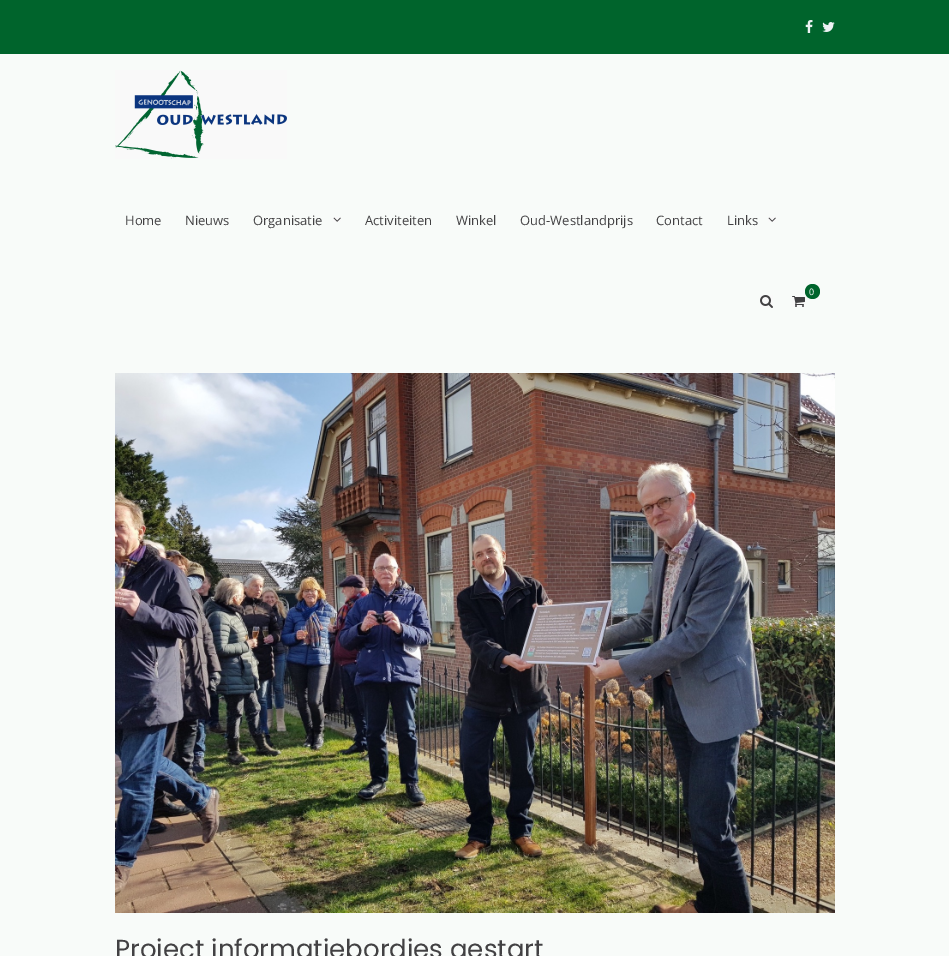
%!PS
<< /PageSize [949 956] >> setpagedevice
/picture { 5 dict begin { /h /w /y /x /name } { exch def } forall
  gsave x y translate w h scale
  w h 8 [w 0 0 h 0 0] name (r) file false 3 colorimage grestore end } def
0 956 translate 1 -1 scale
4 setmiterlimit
0.973 0.984 0.976 setrgbcolor
0 0 949 956 rectfill
0 0.392 0.173 setrgbcolor
0 0 949 54 rectfill
(img1.rgb) 805 20 8 13 picture
(img2.rgb) 822 22 13 10 picture
(img3.rgb) 115 70 172 89 picture
/OpenSans-Regular [13 0 0 -13 0 0] selectfont
0.259 0.255 0.263 setrgbcolor
125 225 moveto (Home) show
185 225 moveto (Nieuws) show
253 225 moveto (Organisatie) show
(img4.rgb) 333 217 8 5 picture
365 225 moveto (Activiteiten) show
456 225 moveto (Winkel) show
520 225 moveto (Oud-Westlandprijs) show
656 225 moveto (Contact) show
727 225 moveto (Links) show
(img4.rgb) 768 217 8 5 picture
0 0.392 0.173 setrgbcolor
newpath 812.5 291.5 7.5 0 360 arc closepath fill
/OpenSans-Regular [9 0 0 -9 0 0] selectfont
1 setgray
809 295 moveto (0) show
(img5.rgb) 792 296 13 11 picture
(img6.rgb) 760 295 13 13 picture
(img7.rgb) 115 373 720 540 picture
/Poppins-Regular [26 0 0 -26 0 0] selectfont
0.259 0.255 0.263 setrgbcolor
115 958 moveto (Project informatiebordjes gestart) show
showpage
